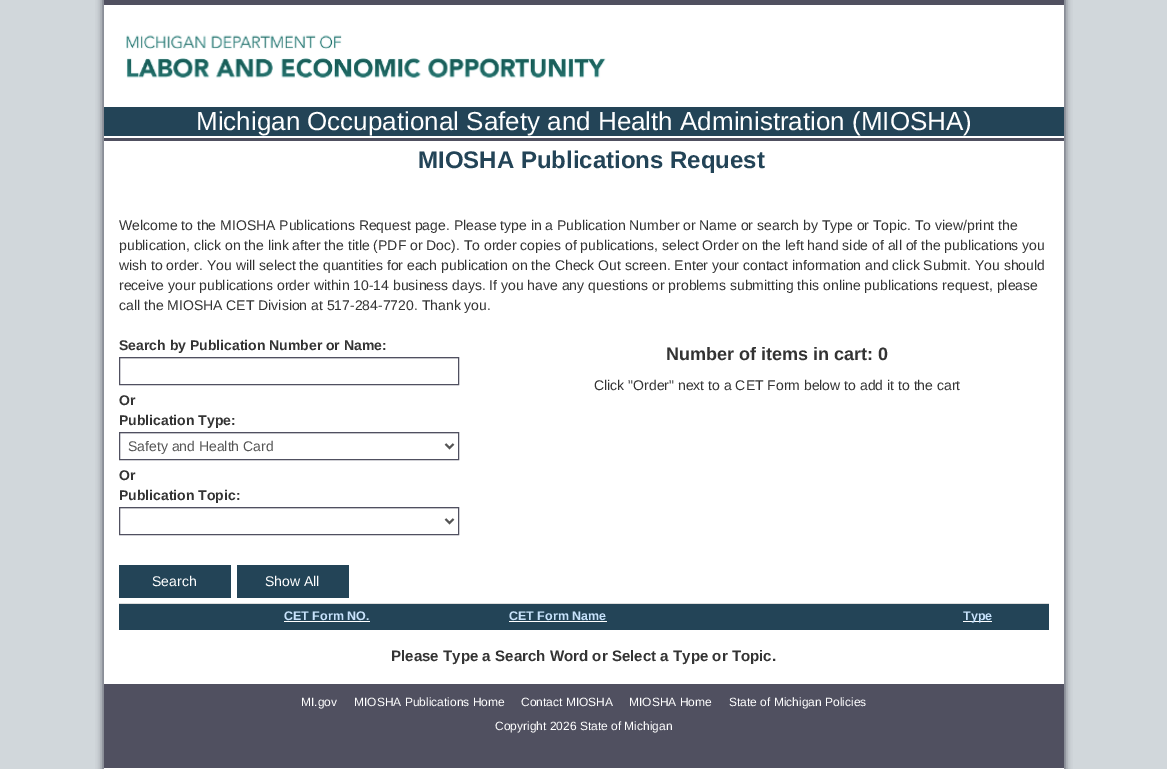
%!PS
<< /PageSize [1167 769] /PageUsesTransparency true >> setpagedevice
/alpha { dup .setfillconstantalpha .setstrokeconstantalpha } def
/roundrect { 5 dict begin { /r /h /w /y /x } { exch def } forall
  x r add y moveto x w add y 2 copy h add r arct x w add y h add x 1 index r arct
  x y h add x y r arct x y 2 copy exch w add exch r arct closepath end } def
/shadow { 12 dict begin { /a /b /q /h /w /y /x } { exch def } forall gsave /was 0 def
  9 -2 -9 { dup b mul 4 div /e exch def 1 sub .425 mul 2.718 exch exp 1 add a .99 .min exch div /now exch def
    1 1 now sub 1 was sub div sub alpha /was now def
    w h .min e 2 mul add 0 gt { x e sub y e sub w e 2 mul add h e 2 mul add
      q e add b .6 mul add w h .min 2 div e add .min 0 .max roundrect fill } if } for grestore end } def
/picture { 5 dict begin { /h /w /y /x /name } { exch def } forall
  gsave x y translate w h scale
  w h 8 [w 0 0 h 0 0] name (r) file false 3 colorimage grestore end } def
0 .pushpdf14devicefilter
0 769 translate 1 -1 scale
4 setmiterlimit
0.82 0.843 0.859 setrgbcolor
0 0 1167 769 rectfill
0.314 0.314 0.376 setrgbcolor
103 -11 962 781 0 3.5 1 shadow
1 setgray
104 5 960 764 rectfill
0.314 0.314 0.376 setrgbcolor
104 0 960 5 rectfill
(img1.rgb) 126 35 480 43 picture
0.137 0.267 0.341 setrgbcolor
104 107 960 29 rectfill
/LiberationSans-Regular [26 0 0 -26 0 0] selectfont
1 setgray
196 130 moveto (Michigan Occupational Safety and Health Administration \(MIOSHA\)) show
0.314 0.314 0.376 setrgbcolor
104 138 960 3 rectfill
/LiberationSans-Bold [24 0 0 -24 0 0] selectfont
0.137 0.267 0.341 setrgbcolor
418 168 moveto (MIOSHA Publications Request) show
/LiberationSans-Regular [14 0 0 -14 0 0] selectfont
0.2 setgray
119 230 moveto (Welcome to the MIOSHA Publications Request page. Please type in a Publication Number or Name or search by Type or Topic. To view/print the) show
119 250 moveto (publication, click on the link after the title \(PDF or Doc\). To order copies of publications, select Order on the left hand side of all of the publications you) show
119 270 moveto (wish to order. You will select the quantities for each publication on the Check Out screen. Enter your contact information and click Submit. You should) show
119 290 moveto (receive your publications order within 10-14 business days. If you have any questions or problems submitting this online publications request, please) show
119 310 moveto (call the MIOSHA CET Division at 517-284-7720. Thank you.) show
/LiberationSans-Bold [14 0 0 -14 0 0] selectfont
119 350 moveto (Search by Publication Number or Name:) show
0.925 setgray
120 358 338 1 rectfill
0.314 0.314 0.376 setrgbcolor
119.5 357.5 339 27 rectstroke
0.2 setgray
119 405 moveto (Or) show
119 425 moveto (Publication Type:) show
0.925 setgray
120 433 338 1 rectfill
0.314 0.314 0.376 setrgbcolor
119.5 432.5 339 27 rectstroke
0.333 setgray
2 setlinewidth
newpath 445.5 444 moveto 449.5 448 lineto 453.5 444 lineto stroke
/LiberationSans-Regular [14 0 0 -14 0 0] selectfont
128 451 moveto (Safety and Health Card) show
/LiberationSans-Bold [14 0 0 -14 0 0] selectfont
0.2 setgray
119 480 moveto (Or) show
119 500 moveto (Publication Topic:) show
0.925 setgray
120 508 338 1 rectfill
0.314 0.314 0.376 setrgbcolor
1 setlinewidth
119.5 507.5 339 27 rectstroke
0.333 setgray
2 setlinewidth
newpath 445.5 519 moveto 449.5 523 lineto 453.5 519 lineto stroke
0.137 0.267 0.341 setrgbcolor
119 565 112 33 rectfill
/LiberationSans-Regular [14 0 0 -14 0 0] selectfont
1 setgray
152 586 moveto (Search) show
0.137 0.267 0.341 setrgbcolor
237 565 112 33 rectfill
1 setgray
265 586 moveto (Show All) show
/LiberationSans-Bold [18 0 0 -18 0 0] selectfont
0.2 setgray
666 360 moveto (Number of items in cart: 0) show
/LiberationSans-Regular [14 0 0 -14 0 0] selectfont
594 390 moveto (Click "Order" next to a CET Form below to add it to the cart) show
0.137 0.267 0.341 setrgbcolor
119 604 930 26 rectfill
/LiberationSans-Bold [12.5 0 0 -12.5 0 0] selectfont
0.784 0.89 0.988 setrgbcolor
284 620 moveto (CET Form NO.) show
1 setgray
284 621 86 1 rectfill
0.784 0.89 0.988 setrgbcolor
509 620 moveto (CET Form Name) show
1 setgray
509 621 98 1 rectfill
0.867 setgray
119 603 930 1 rectfill
1 setgray
963 621 29 1 rectfill
0.784 0.89 0.988 setrgbcolor
963 620 moveto (Type) show
/LiberationSans-Bold [15.1 0 0 -15.1 0 0] selectfont
0.2 setgray
391 661 moveto (Please Type a Search Word or Select a Type or Topic.) show
0.314 0.314 0.376 setrgbcolor
104 684 960 84 rectfill
/LiberationSans-Regular [12 0 0 -12 0 0] selectfont
1 setgray
301 706 moveto (MI.gov) show
354 706 moveto (MIOSHA Publications Home) show
521 706 moveto (Contact MIOSHA) show
629 706 moveto (MIOSHA Home) show
729 706 moveto (State of Michigan Policies) show
495 730 moveto (Copyright 2026 State of Michigan) show
.poppdf14devicefilter showpage
